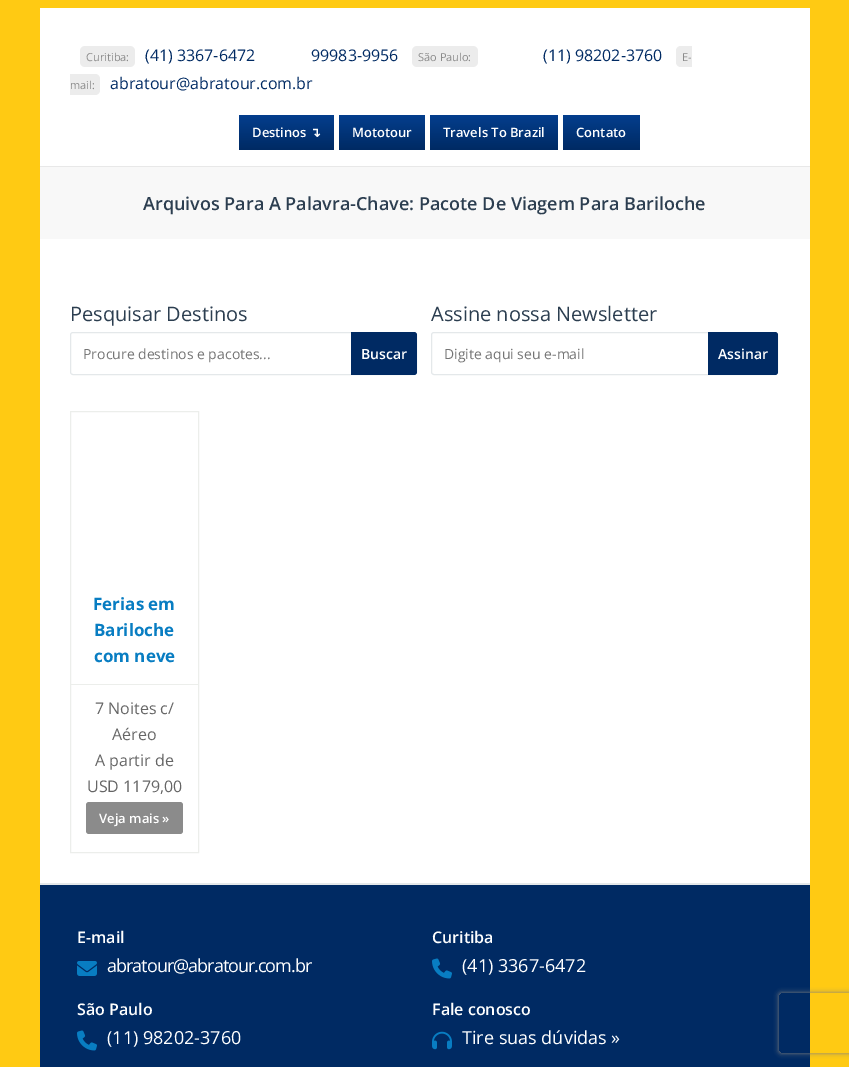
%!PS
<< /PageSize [849 1067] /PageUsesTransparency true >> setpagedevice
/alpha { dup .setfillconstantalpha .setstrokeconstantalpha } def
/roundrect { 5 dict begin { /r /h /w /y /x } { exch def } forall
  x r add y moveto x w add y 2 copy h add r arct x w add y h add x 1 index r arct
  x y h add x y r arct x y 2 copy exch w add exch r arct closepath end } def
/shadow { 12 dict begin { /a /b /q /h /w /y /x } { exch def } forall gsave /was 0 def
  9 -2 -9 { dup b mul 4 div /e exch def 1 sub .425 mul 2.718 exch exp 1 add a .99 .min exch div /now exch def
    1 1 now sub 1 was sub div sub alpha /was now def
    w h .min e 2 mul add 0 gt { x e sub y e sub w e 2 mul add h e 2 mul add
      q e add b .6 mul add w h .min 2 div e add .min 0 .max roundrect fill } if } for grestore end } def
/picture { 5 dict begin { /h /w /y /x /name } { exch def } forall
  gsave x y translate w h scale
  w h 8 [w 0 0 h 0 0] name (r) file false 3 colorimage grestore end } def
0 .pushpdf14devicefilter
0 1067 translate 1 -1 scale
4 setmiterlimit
1 0.792 0.075 setrgbcolor
0 0 849 1067 rectfill
1 setgray
40 8 770 875 rectfill
0.91 setgray
40 166 770 1 rectfill
0.925 setgray
80 46 55 21 5 roundrect fill
/OpenSans-Regular [11 0 0 -11 0 0] selectfont
0.545 setgray
86 61 moveto (Curitiba:) show
/OpenSans-Regular [16 0 0 -16 0 0] selectfont
0 0.165 0.388 setrgbcolor
145 61 moveto (\(41\) 3367-6472) show
311 61 moveto (99983-9956) show
0.925 setgray
412 46 66 21 5 roundrect fill
/OpenSans-Regular [11 0 0 -11 0 0] selectfont
0.545 setgray
418 61 moveto (São Paulo:) show
/OpenSans-Regular [16 0 0 -16 0 0] selectfont
0 0.165 0.388 setrgbcolor
543 61 moveto (\(11\) 98202-3760) show
0.925 setgray
newpath 681 46 moveto 692 46 lineto 692 67 lineto 681 67 lineto 678 67 676 65 676 62 curveto 676 51 lineto 676 48 678 46 681 46 curveto closepath fill
/OpenSans-Regular [11 0 0 -11 0 0] selectfont
0.545 setgray
682 61 moveto (E-) show
0.925 setgray
newpath 70 74 moveto 95 74 lineto 98 74 100 76 100 79 curveto 100 90 lineto 100 93 98 95 95 95 curveto 70 95 lineto closepath fill
0.545 setgray
70 89 moveto (mail:) show
/OpenSans-Regular [16 0 0 -16 0 0] selectfont
0 0.165 0.388 setrgbcolor
110 89 moveto (abratour@abratour.com.br) show
gsave 239 115 95 35 3 roundrect clip newpath
<< /ShadingType 2 /ColorSpace /DeviceRGB /Coords [287 115 287 150] /Extend [true true] /Function << /FunctionType 2 /Domain [0 1] /C0 [0.016 0.243 0.553] /C1 [0 0.165 0.388] /N 1 >> >> shfill grestore
/OpenSans-SemiBold [13 0 0 -13 0 0] selectfont
1 setgray
252 137 moveto (Destinos) show
/DejaVuSans-Bold [13 0 0 -13 0 0] selectfont
310 137 moveto (↴) show
gsave 339 115 86 35 3 roundrect clip newpath
<< /ShadingType 2 /ColorSpace /DeviceRGB /Coords [382 115 382 150] /Extend [true true] /Function << /FunctionType 2 /Domain [0 1] /C0 [0.016 0.243 0.553] /C1 [0 0.165 0.388] /N 1 >> >> shfill grestore
/OpenSans-SemiBold [13 0 0 -13 0 0] selectfont
352 137 moveto (Mototour) show
gsave 430 115 128 35 3 roundrect clip newpath
<< /ShadingType 2 /ColorSpace /DeviceRGB /Coords [494 115 494 150] /Extend [true true] /Function << /FunctionType 2 /Domain [0 1] /C0 [0.016 0.243 0.553] /C1 [0 0.165 0.388] /N 1 >> >> shfill grestore
443 137 moveto (Travels To Brazil) show
gsave 563 115 77 35 3 roundrect clip newpath
<< /ShadingType 2 /ColorSpace /DeviceRGB /Coords [602 115 602 150] /Extend [true true] /Function << /FunctionType 2 /Domain [0 1] /C0 [0.016 0.243 0.553] /C1 [0 0.165 0.388] /N 1 >> >> shfill grestore
576 137 moveto (Contato) show
0.973 setgray
40 167 770 72 rectfill
/OpenSans-SemiBold [18 0 0 -18 0 0] selectfont
0.173 0.243 0.314 setrgbcolor
143 210 moveto (Arquivos Para A Palavra-Chave: Pacote De Viagem Para Bariloche) show
/OpenSans-Regular [20 0 0 -20 0 0] selectfont
70 321 moveto (Pesquisar Destinos) show
0.894 0.91 0.918 setrgbcolor
70.5 332.5 346 42 2.5 roundrect stroke
/OpenSans-Regular [14 0 0 -14 0 0] selectfont
0.459 setgray
83 359 moveto (Procure destinos e pacotes...) show
0 0.165 0.388 setrgbcolor
newpath 351 332 moveto 414 332 lineto 415.5 332 417 333.5 417 335 curveto 417 372 lineto 417 373.5 415.5 375 414 375 curveto 351 375 lineto closepath fill
/OpenSans-SemiBold [14 0 0 -14 0 0] selectfont
1 setgray
361 359 moveto (Buscar) show
/OpenSans-Regular [20 0 0 -20 0 0] selectfont
0.173 0.243 0.314 setrgbcolor
431 321 moveto (Assine nossa Newsletter) show
0.894 0.91 0.918 setrgbcolor
431.5 332.5 346 42 2.5 roundrect stroke
/OpenSans-Regular [14 0 0 -14 0 0] selectfont
0.459 setgray
444 359 moveto (Digite aqui seu e-mail) show
0 0.165 0.388 setrgbcolor
newpath 708 332 moveto 775 332 lineto 776.5 332 778 333.5 778 335 curveto 778 372 lineto 778 373.5 776.5 375 775 375 curveto 708 375 lineto closepath fill
/OpenSans-SemiBold [14 0 0 -14 0 0] selectfont
1 setgray
718 359 moveto (Assinar) show
0.925 0.933 0.922 setrgbcolor
70.5 411.5 128 441 rectstroke
/OpenSans-Bold [17 0 0 -17 0 0] selectfont
0.031 0.49 0.761 setrgbcolor
93 610 moveto (Ferias em) show
94 636 moveto (Bariloche) show
94 662 moveto (com neve) show
0.925 0.933 0.922 setrgbcolor
71 684 127 1 rectfill
/OpenSans-Regular [16 0 0 -16 0 0] selectfont
0.4 setgray
95 714 moveto (7 Noites c/) show
112 740 moveto (Aéreo) show
95 766 moveto (A partir de) show
87 792 moveto (USD 1179,00) show
0.545 setgray
86 802 97 32 3 roundrect fill
/OpenSans-SemiBold [13 0 0 -13 0 0] selectfont
1 setgray
99 823 moveto (Veja mais ») show
0 0.165 0.388 setrgbcolor
40 885 770 182 rectfill
0.894 0.91 0.918 setrgbcolor
40 883 770 2 rectfill
/OpenSans-SemiBold [16 0 0 -16 0 0] selectfont
1 setgray
77 943 moveto (E-mail) show
(img1.rgb) 77 961 20 15 picture
/OpenSans-Regular [18 0 0 -18 0 0] selectfont
107 972 moveto -1 0 (abratour@abratour.com.br) ashow
/OpenSans-SemiBold [16 0 0 -16 0 0] selectfont
432 943 moveto (Curitiba) show
(img2.rgb) 432 958 20 21 picture
/OpenSans-Regular [18 0 0 -18 0 0] selectfont
462 972 moveto (\(41\) 3367-6472) show
/OpenSans-SemiBold [16 0 0 -16 0 0] selectfont
77 1015 moveto (São Paulo) show
(img2.rgb) 77 1030 20 21 picture
/OpenSans-Regular [18 0 0 -18 0 0] selectfont
107 1044 moveto (\(11\) 98202-3760) show
/OpenSans-SemiBold [16 0 0 -16 0 0] selectfont
432 1015 moveto (Fale conosco) show
(img3.rgb) 432 1031 20 19 picture
/OpenSans-Regular [18 0 0 -18 0 0] selectfont
462 1044 moveto (Tire suas dúvidas ») show
gsave
newpath 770 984 moveto 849 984 lineto 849 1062 lineto 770 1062 lineto closepath 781 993 moveto 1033 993 lineto 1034 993 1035 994 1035 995 curveto 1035 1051 lineto 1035 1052 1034 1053 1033 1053 curveto 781 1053 lineto 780 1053 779 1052 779 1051 curveto 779 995 lineto 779 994 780 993 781 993 curveto closepath eoclip newpath
0.502 setgray
779 993 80 60 2 2.5 1 shadow
grestore
.poppdf14devicefilter showpage
